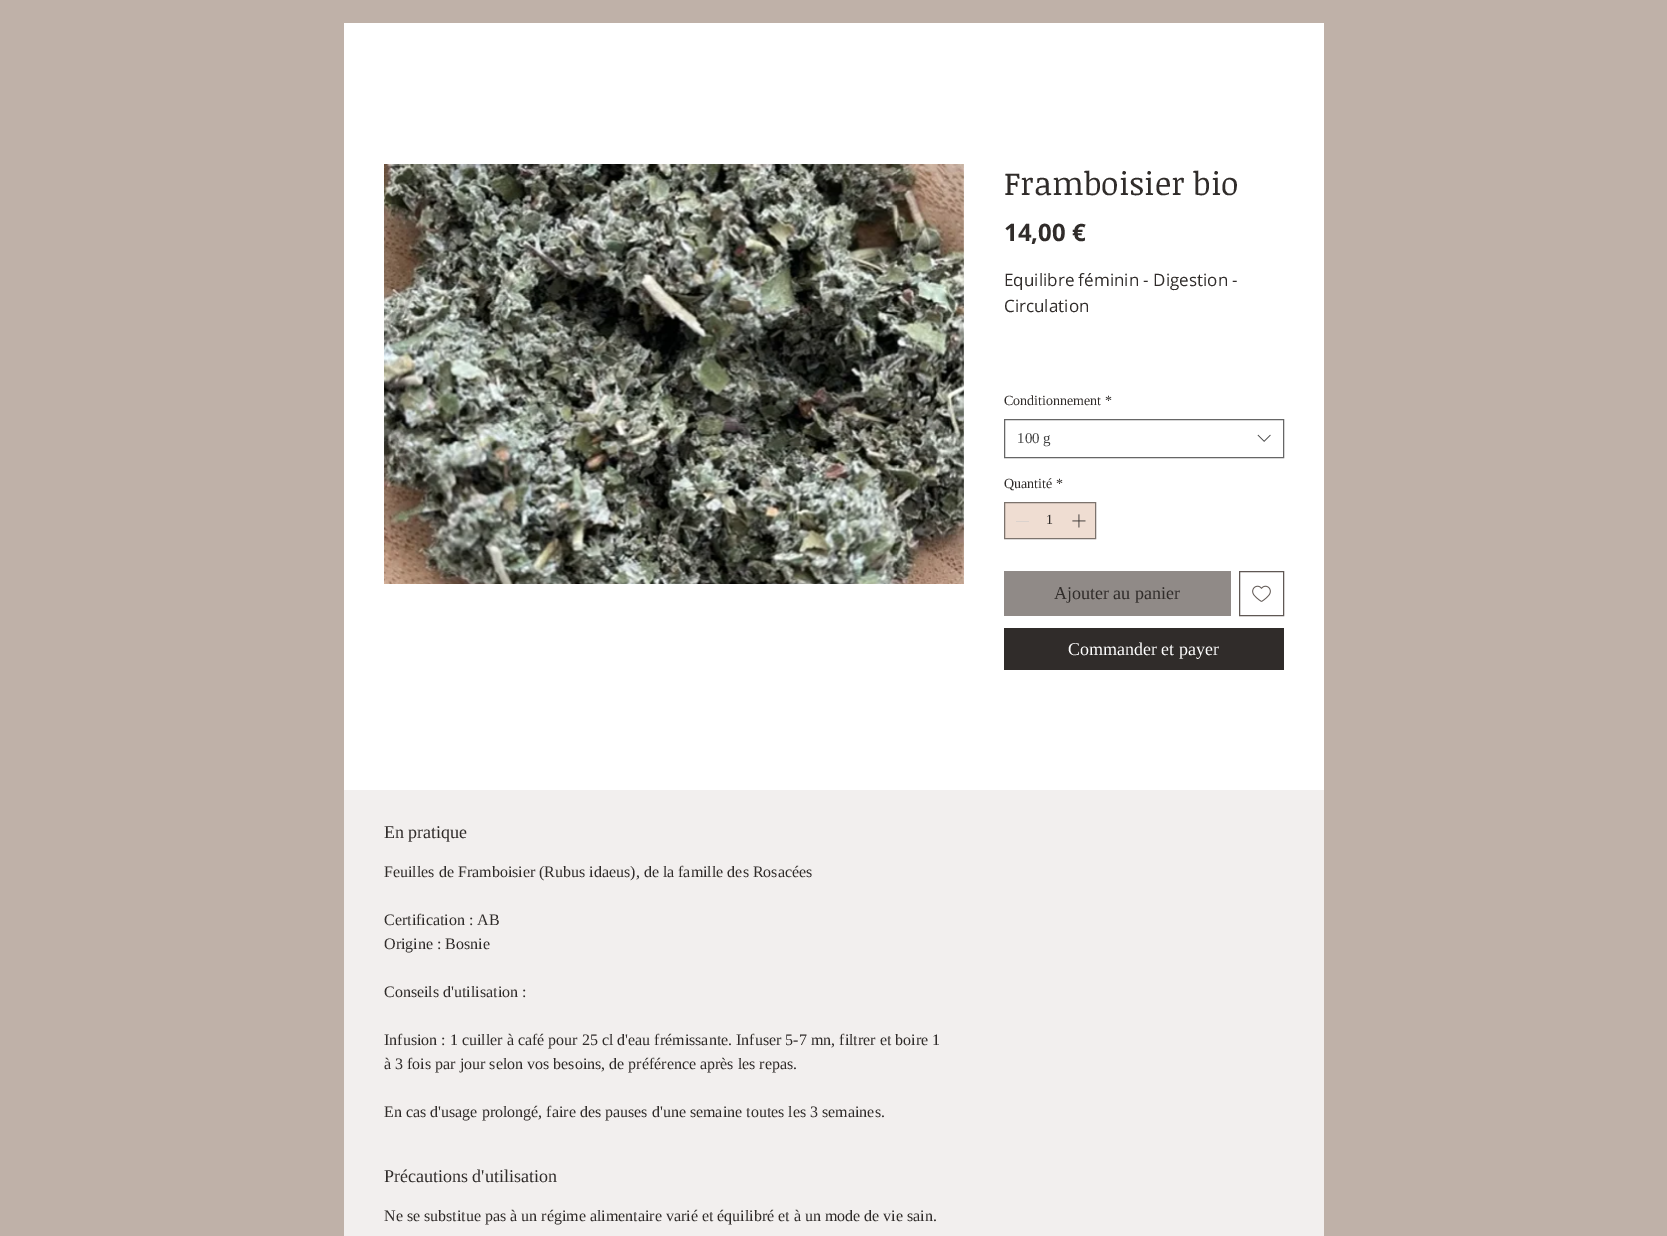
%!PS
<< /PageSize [1667 1236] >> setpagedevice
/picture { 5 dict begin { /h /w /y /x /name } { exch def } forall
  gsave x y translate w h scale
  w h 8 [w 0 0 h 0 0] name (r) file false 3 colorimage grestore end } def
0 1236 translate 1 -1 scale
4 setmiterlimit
0.749 0.694 0.659 setrgbcolor
0 0 1667 1236 rectfill
1 setgray
344 23 980 767 rectfill
(img1.rgb) 384 164 580 420 picture
/NoticiaText-Regular [32 0 0 -32 0 0] selectfont
0.188 0.173 0.165 setrgbcolor
1004 195 moveto (Framboisier bio) show
/OpenSans-Bold [24 0 0 -24 0 0] selectfont
1004 241 moveto (14,00 €) show
/OpenSans-Regular [17 0 0 -17 0 0] selectfont
1004 286 moveto (Equilibre féminin - Digestion -) show
1004 312 moveto (Circulation) show
/LiberationSerif-Regular [14 0 0 -14 0 0] selectfont
1004 405 moveto (Conditionnement) show
1105 405 moveto (*) show
0.4 setgray
1004.5 419.5 279 38 rectstroke
/LiberationSerif-Regular [15 0 0 -15 0 0] selectfont
0.267 setgray
1017 443 moveto (100 g) show
(img2.rgb) 1257 434 14 8 picture
/LiberationSerif-Regular [14 0 0 -14 0 0] selectfont
0.188 0.173 0.165 setrgbcolor
1004 488 moveto (Quantité) show
1056 488 moveto (*) show
0.937 0.867 0.824 setrgbcolor
newpath 1004.5 502.5 moveto 1095.5 502.5 lineto 1095.5 538.5 lineto 1004.5 538.5 lineto closepath gsave fill grestore
0.486 0.451 0.427 setrgbcolor
stroke
0.859 0.824 0.804 setrgbcolor
1016 521 13 1 rectfill
0.188 0.173 0.165 setrgbcolor
1046 524 moveto (1) show
(img3.rgb) 1072 514 14 14 picture
0.565 0.541 0.529 setrgbcolor
1004 571 227 45 rectfill
/LiberationSerif-Regular [18 0 0 -18 0 0] selectfont
0.188 0.173 0.165 setrgbcolor
1054 599 moveto (Ajouter au panier) show
0.376 0.345 0.329 setrgbcolor
1239.5 571.5 44 44 rectstroke
(img4.rgb) 1252 585 19 17 picture
0.188 0.173 0.165 setrgbcolor
1004 628 280 42 rectfill
1 setgray
1068 655 moveto (Commander et payer) show
0.949 0.937 0.933 setrgbcolor
344 790 980 446 rectfill
0.188 0.173 0.165 setrgbcolor
384 838 moveto (En pratique) show
/LiberationSerif-Regular [16 0 0 -16 0 0] selectfont
384 877 moveto (Feuilles de Framboisier \(Rubus idaeus\), de la famille des Rosacées) show
384 925 moveto (Certification : AB) show
384 949 moveto (Origine : Bosnie) show
384 997 moveto (Conseils d'utilisation :) show
384 1045 moveto (Infusion : 1 cuiller à café pour 25 cl d'eau frémissante. Infuser 5-7 mn, filtrer et boire 1) show
384 1069 moveto (à 3 fois par jour selon vos besoins, de préférence après les repas.) show
384 1117 moveto (En cas d'usage prolongé, faire des pauses d'une semaine toutes les 3 semaines.) show
/LiberationSerif-Regular [18 0 0 -18 0 0] selectfont
384 1182 moveto (Précautions d'utilisation) show
/LiberationSerif-Regular [16 0 0 -16 0 0] selectfont
384 1221 moveto (Ne se substitue pas à un régime alimentaire varié et équilibré et à un mode de vie sain.) show
showpage
